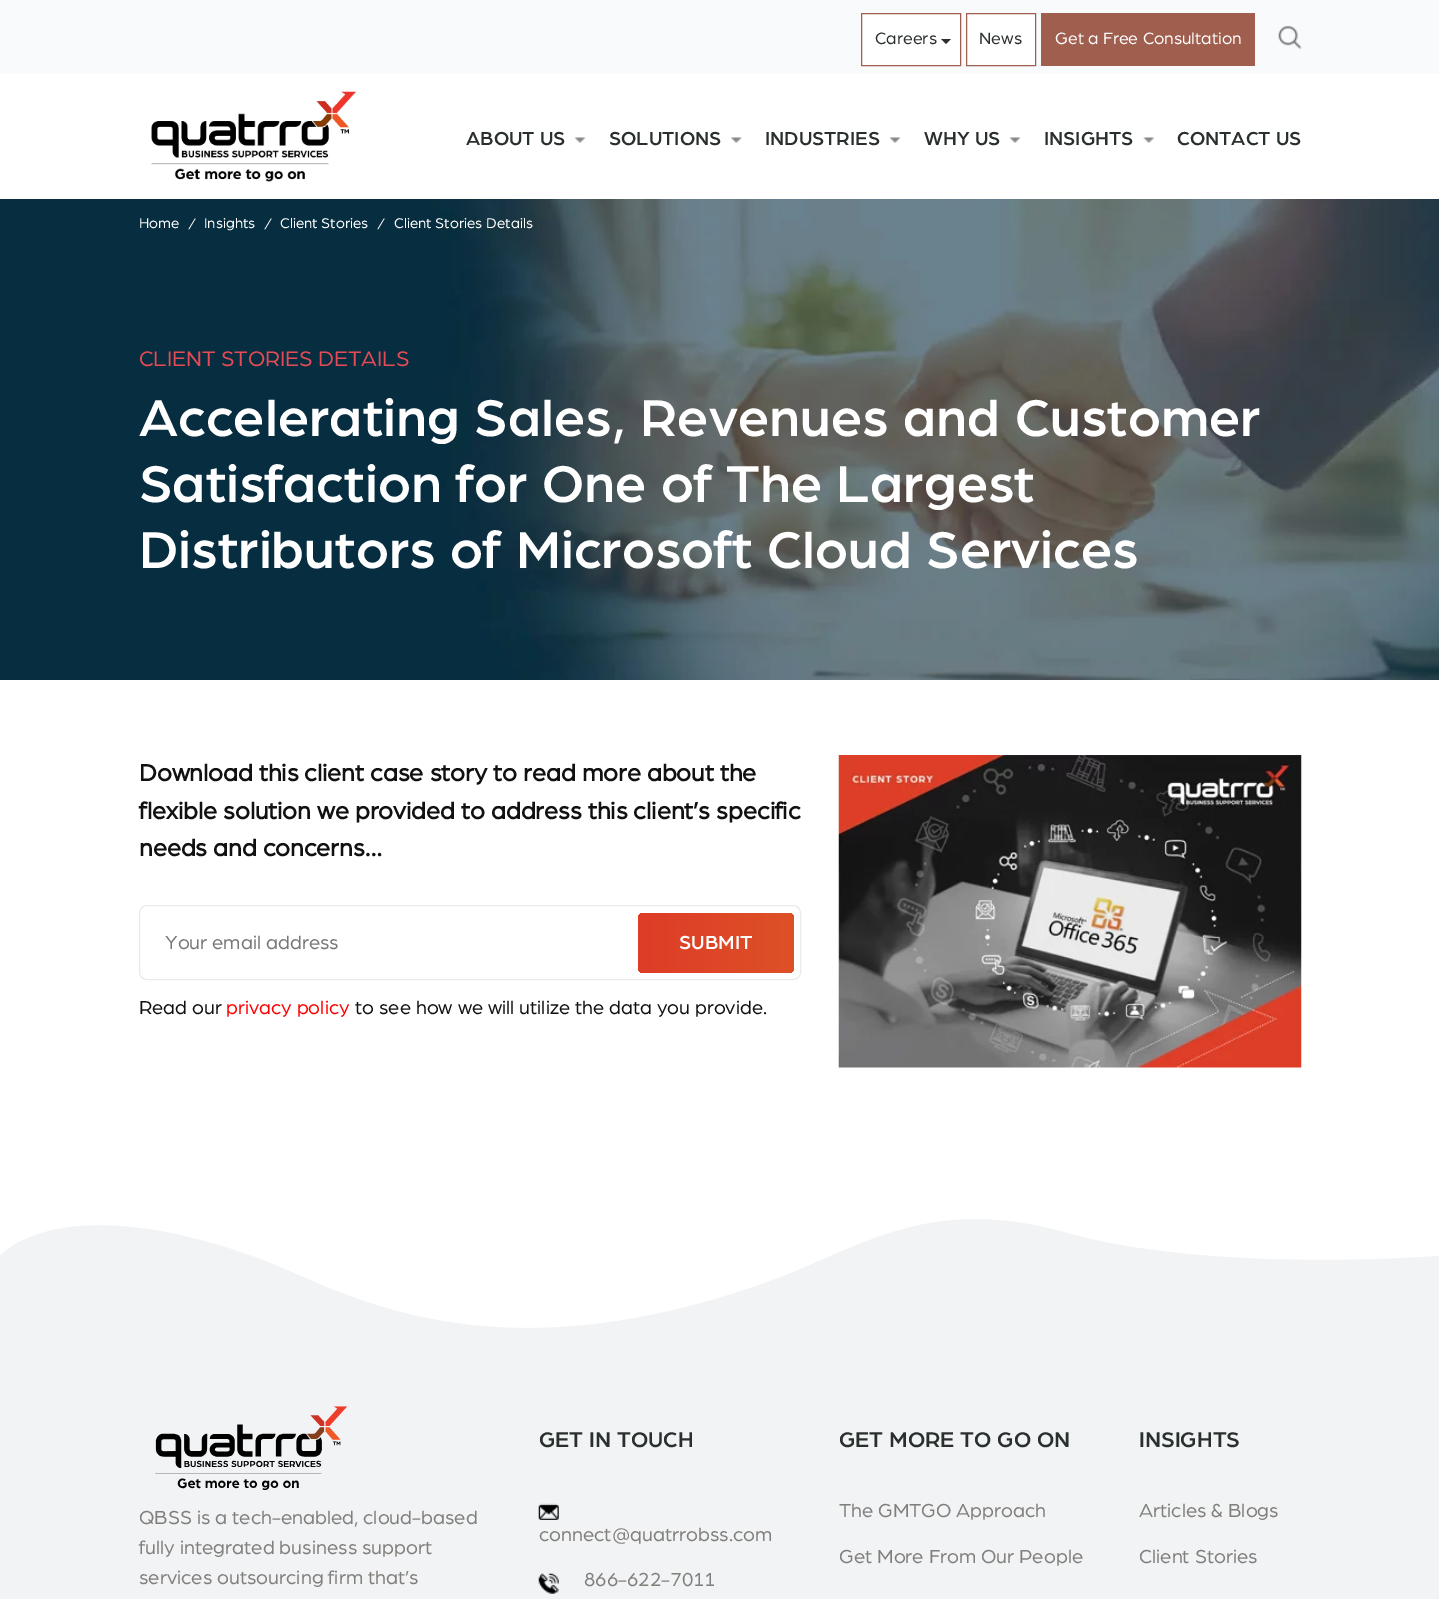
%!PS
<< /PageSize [1439 1599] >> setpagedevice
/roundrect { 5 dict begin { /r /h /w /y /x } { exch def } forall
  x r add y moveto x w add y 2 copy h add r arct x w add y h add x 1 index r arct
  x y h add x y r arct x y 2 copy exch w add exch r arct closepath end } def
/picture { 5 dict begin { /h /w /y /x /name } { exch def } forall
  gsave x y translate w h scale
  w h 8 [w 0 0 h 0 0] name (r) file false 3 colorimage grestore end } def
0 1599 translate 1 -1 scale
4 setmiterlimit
1 setgray
0 0 1439 1599 rectfill
0.973 0.98 0.988 setrgbcolor
0 0 1439 74 rectfill
1 setgray
newpath 861.5 13.5 moveto 960.5 13.5 lineto 960.5 65.5 lineto 861.5 65.5 lineto closepath gsave fill grestore
0.627 0.369 0.31 setrgbcolor
stroke
/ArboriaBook-Regular [17.5 0 0 -17.5 0 0] selectfont
0.161 0.184 0.176 setrgbcolor
875 44 moveto (Careers) show
newpath 941 39 moveto 951 39 lineto 946 44 lineto closepath fill
1 setgray
newpath 966.5 13.5 moveto 1035.5 13.5 lineto 1035.5 65.5 lineto 966.5 65.5 lineto closepath gsave fill grestore
0.627 0.369 0.31 setrgbcolor
stroke
0.161 0.184 0.176 setrgbcolor
979 44 moveto (News) show
0.627 0.369 0.31 setrgbcolor
1041 13 214 53 rectfill
1 setgray
1055 44 moveto (Get a Free Consultation) show
(img1.rgb) 1278 26 24 23 picture
(img2.rgb) 151 91 206 91 picture
(img3.rgb) 574 137 12 6 picture
/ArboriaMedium-Medium [20 0 0 -20 0 0] selectfont
0.161 0.184 0.176 setrgbcolor
466 145 moveto (ABOUT US) show
(img4.rgb) 731 137 11 6 picture
609 145 moveto (SOLUTIONS) show
(img5.rgb) 889 137 12 6 picture
765 145 moveto (INDUSTRIES) show
(img3.rgb) 1009 137 12 6 picture
924 145 moveto (WHY US) show
(img6.rgb) 1143 137 11 6 picture
1044 145 moveto (INSIGHTS) show
1177 145 moveto (CONTACT US) show
(img7.rgb) 0 199 1439 481 picture
/ArboriaBook-Regular [15 0 0 -15 0 0] selectfont
1 setgray
139 228 moveto (Home) show
188 229 moveto (/) show
204 228 moveto (Insights) show
264 229 moveto (/) show
280 228 moveto (Client Stories) show
377 229 moveto (/) show
394 228 moveto (Client Stories Details) show
/ArboriaBook-Regular [22.5 0 0 -22.5 0 0] selectfont
0.894 0.294 0.333 setrgbcolor
139 366 moveto (CLIENT STORIES DETAILS) show
/ArboriaMedium-Medium [55 0 0 -55 0 0] selectfont
1 setgray
139 436 moveto (Accelerating Sales, Revenues and Customer) show
139 502 moveto (Satisfaction for One of The Largest) show
139 568 moveto (Distributors of Microsoft Cloud Services) show
/ArboriaBook-Bold [25 0 0 -25 0 0] selectfont
0.067 setgray
139 781 moveto (Download this client case story to read more about the) show
139 819 moveto (flexible solution we provided to address this client’s specific) show
139 856 moveto (needs and concerns…) show
0.91 0.918 0.922 setrgbcolor
139.5 905.5 661 74 7.5 roundrect stroke
/ArboriaBook-Regular [20.1 0 0 -20.1 0 0] selectfont
0.471 setgray
165 949 moveto (Your email address) show
gsave 638 913 156 60 5 roundrect clip newpath
<< /ShadingType 2 /ColorSpace /DeviceRGB /Coords [638 943 794 943] /Extend [true true] /Function << /FunctionType 2 /Domain [0 1] /C0 [0.867 0.235 0.153] /C1 [0.871 0.318 0.149] /N 1 >> >> shfill grestore
/ArboriaMedium-Medium [20.1 0 0 -20.1 0 0] selectfont
1 setgray
679 949 moveto (SUBMIT) show
/ArboriaBook-Regular [20 0 0 -20 0 0] selectfont
0.067 setgray
139 1014 moveto (Read our) show
1 0 0 setrgbcolor
226 1014 moveto (privacy policy) show
0.067 setgray
355 1014 moveto (to see how we will utilize the data you provide.) show
(img8.rgb) 838 755 464 313 picture
0.945 0.953 0.961 setrgbcolor
newpath 0 1256 moveto 0 1256 56 1187 252 1256 curveto 331 1283 471 1385 759 1285 curveto 856 1252 923 1192 1067 1233 curveto 1212 1274 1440 1256 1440 1256 curveto 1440 1332 lineto 0 1332 lineto closepath eofill
0 1332 1439 267 rectfill
(img9.rgb) 155 1406 193 84 picture
/ArboriaBook-Regular [20.1 0 0 -20.1 0 0] selectfont
0.506 0.498 0.486 setrgbcolor
139 1524 moveto (QBSS is a tech-enabled, cloud-based) show
139 1554 moveto (fully integrated business support) show
139 1584 moveto (services outsourcing firm that’s) show
/ArboriaMedium-Medium [22.6 0 0 -22.6 0 0] selectfont
0.161 0.184 0.176 setrgbcolor
539 1447 moveto (GET IN TOUCH) show
(img10.rgb) 538 1503 21 17 picture
/ArboriaBook-Regular [20.1 0 0 -20.1 0 0] selectfont
0.506 0.498 0.486 setrgbcolor
539 1541 moveto (connect@quatrrobss.com) show
(img11.rgb) 538 1573 21 21 picture
584 1586 moveto (866-622-7011) show
/ArboriaMedium-Medium [22.6 0 0 -22.6 0 0] selectfont
0.161 0.184 0.176 setrgbcolor
839 1447 moveto (GET MORE TO GO ON) show
/ArboriaBook-Regular [20.1 0 0 -20.1 0 0] selectfont
0.506 0.498 0.486 setrgbcolor
839 1517 moveto (The GMTGO Approach) show
839 1563 moveto (Get More From Our People) show
/ArboriaMedium-Medium [22.6 0 0 -22.6 0 0] selectfont
0.161 0.184 0.176 setrgbcolor
1139 1447 moveto (INSIGHTS) show
/ArboriaBook-Regular [20.1 0 0 -20.1 0 0] selectfont
0.506 0.498 0.486 setrgbcolor
1139 1517 moveto (Articles & Blogs) show
1139 1563 moveto (Client Stories) show
showpage
